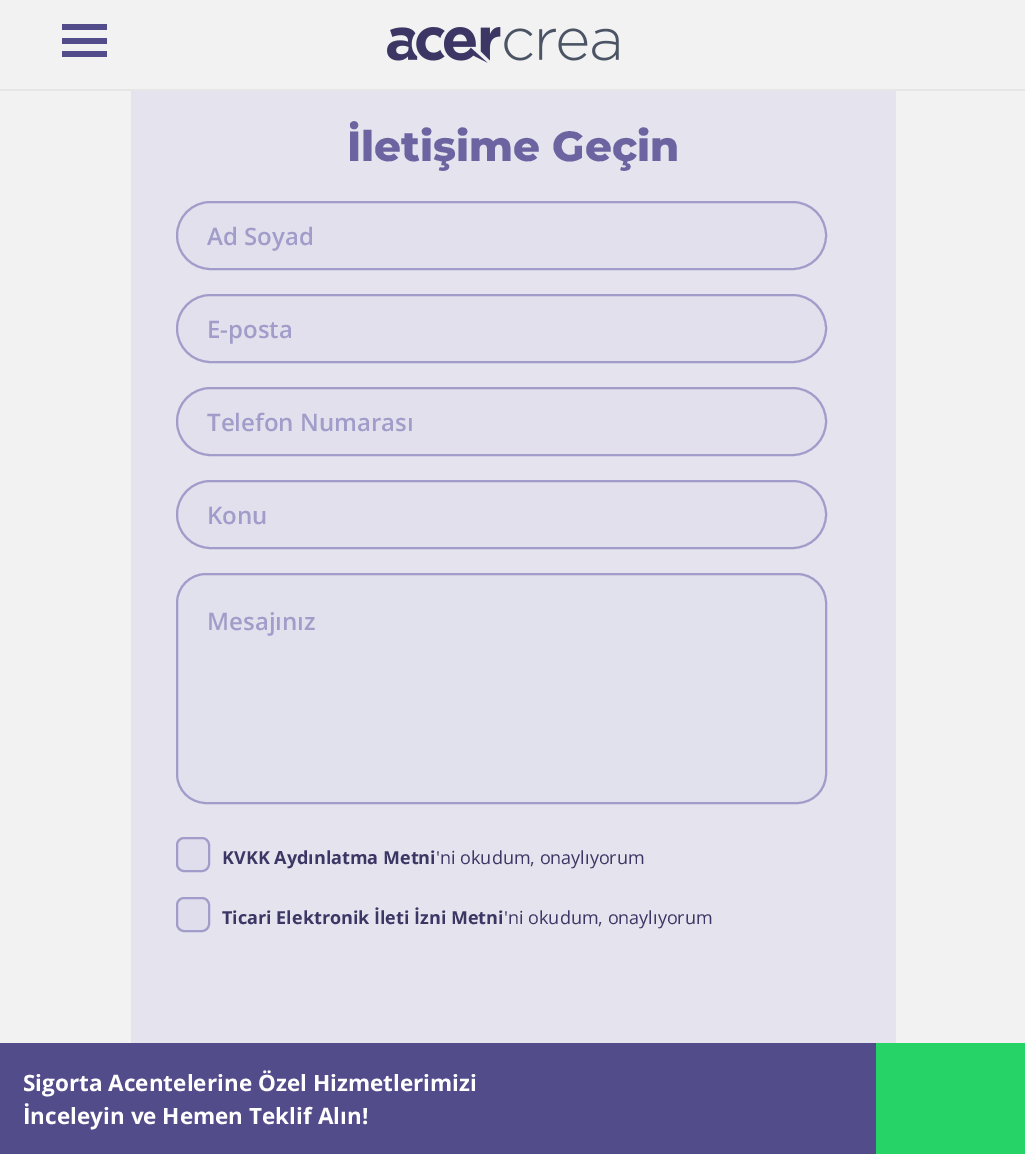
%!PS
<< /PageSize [1025 1154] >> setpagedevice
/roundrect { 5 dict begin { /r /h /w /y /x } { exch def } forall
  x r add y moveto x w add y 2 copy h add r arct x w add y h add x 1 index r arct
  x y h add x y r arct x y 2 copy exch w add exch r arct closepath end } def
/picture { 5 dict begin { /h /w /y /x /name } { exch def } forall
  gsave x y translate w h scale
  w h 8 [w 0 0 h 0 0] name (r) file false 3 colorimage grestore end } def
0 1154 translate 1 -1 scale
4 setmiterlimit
0.949 setgray
0 0 1025 1154 rectfill
0.902 setgray
0 89 1025 2 rectfill
0.325 0.298 0.541 setrgbcolor
62 24 45 6 rectfill
62 38 45 6 rectfill
62 51 45 6 rectfill
(img1.rgb) 387 27 232 36 picture
0.898 0.89 0.933 setrgbcolor
131 91 765 952 rectfill
/Montserrat-ExtraBold [42 0 0 -42 0 0] selectfont
0.42 0.392 0.631 setrgbcolor
347 161 moveto (İletişime Geçin) show
0.886 0.878 0.929 setrgbcolor
177 202 649 67 33.5 roundrect gsave fill grestore
0.631 0.612 0.788 setrgbcolor
2 setlinewidth
stroke
/OpenSans-SemiBold [24 0 0 -24 0 0] selectfont
207 245 moveto (Ad Soyad) show
0.886 0.878 0.929 setrgbcolor
177 295 649 67 33.5 roundrect gsave fill grestore
0.631 0.612 0.788 setrgbcolor
stroke
207 338 moveto (E-posta) show
0.886 0.878 0.929 setrgbcolor
177 388 649 67 33.5 roundrect gsave fill grestore
0.631 0.612 0.788 setrgbcolor
stroke
207 431 moveto (Telefon Numarası) show
0.886 0.878 0.929 setrgbcolor
177 481 649 67 33.5 roundrect gsave fill grestore
0.631 0.612 0.788 setrgbcolor
stroke
207 524 moveto (Konu) show
0.882 0.878 0.929 setrgbcolor
177 574 649 229 29 roundrect gsave fill grestore
0.631 0.612 0.788 setrgbcolor
stroke
207 630 moveto (Mesajınız) show
0.878 0.871 0.929 setrgbcolor
177 838 32 33 7 roundrect gsave fill grestore
0.631 0.612 0.788 setrgbcolor
stroke
/OpenSans-Bold [18 0 0 -18 0 0] selectfont
0.231 0.212 0.388 setrgbcolor
222 864 moveto (KVKK Aydınlatma Metni) show
/OpenSans-Regular [18 0 0 -18 0 0] selectfont
436 864 moveto ('ni okudum, onaylıyorum) show
0.878 0.871 0.929 setrgbcolor
177 898 32 33 7 roundrect gsave fill grestore
0.631 0.612 0.788 setrgbcolor
stroke
/OpenSans-Bold [18 0 0 -18 0 0] selectfont
0.231 0.212 0.388 setrgbcolor
222 924 moveto (Ticari Elektronik İleti İzni Metni) show
/OpenSans-Regular [18 0 0 -18 0 0] selectfont
504 924 moveto ('ni okudum, onaylıyorum) show
0.325 0.298 0.541 setrgbcolor
0 1043 876 111 rectfill
/OpenSans-Bold [22.5 0 0 -22.5 0 0] selectfont
1 setgray
23 1091 moveto (Sigorta Acentelerine Özel Hizmetlerimizi) show
23 1124 moveto (İnceleyin ve Hemen Teklif Alın!) show
0.145 0.827 0.4 setrgbcolor
876 1043 149 111 rectfill
showpage
